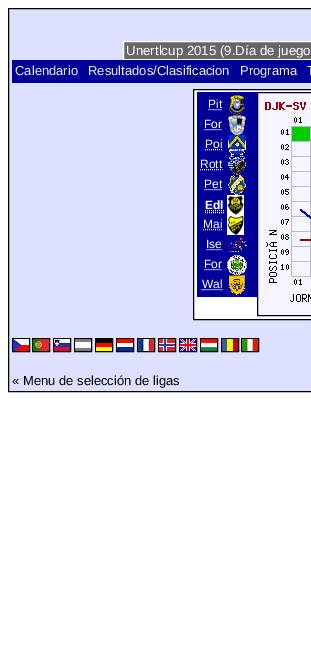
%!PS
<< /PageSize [311 647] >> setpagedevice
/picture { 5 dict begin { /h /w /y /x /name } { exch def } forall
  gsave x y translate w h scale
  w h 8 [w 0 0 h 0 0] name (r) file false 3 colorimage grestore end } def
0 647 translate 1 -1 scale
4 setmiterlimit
1 setgray
0 0 311 647 rectfill
0.867 0.878 1 setrgbcolor
newpath 8.5 8.5 moveto 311.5 8.5 lineto 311.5 391.5 lineto 8.5 391.5 lineto closepath gsave fill grestore
0 setgray
stroke
0.4 setgray
newpath 123.5 41.5 moveto 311.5 41.5 lineto 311.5 59.5 lineto 123.5 59.5 lineto closepath gsave fill grestore
1 setgray
stroke
/LiberationSans-Regular [13.3 0 0 -13.3 0 0] selectfont
126 55 moveto (Unertlcup 2015 \(9.Día de juego) show
0 0 0.6 setrgbcolor
12 60 299 23 rectfill
/LiberationSans-Regular [13 0 0 -13 0 0] selectfont
0.933 setgray
15 75 moveto (Calendario) show
88 75 moveto (Resultados/Clasificacion) show
240 75 moveto (Programa) show
307 75 moveto (T) show
1 setgray
newpath 193.5 89.5 moveto 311.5 89.5 lineto 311.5 319.5 lineto 193.5 319.5 lineto closepath gsave fill grestore
0 setgray
stroke
0 0 0.6 setrgbcolor
197 92 60 205 rectfill
/LiberationSans-Regular [12 0 0 -12 0 0] selectfont
1 setgray
208 108 moveto (Pit) show
[1 1] 0 setdash
newpath 208.5 109.5 moveto 222.5 109.5 lineto stroke
(img1.rgb) 229 95 16 20 picture
204 128 moveto (For) show
newpath 204.5 129.5 moveto 222.5 129.5 lineto stroke
(img2.rgb) 228 115 18 20 picture
205 148 moveto (Poi) show
newpath 205 149.5 moveto 222.5 149.5 lineto stroke
(img3.rgb) 228 135 18 20 picture
200 168 moveto (Rott) show
newpath 200 169.5 moveto 222.5 169.5 lineto stroke
(img4.rgb) 228 155 18 20 picture
204 188 moveto (Pet) show
newpath 204.5 189.5 moveto 222.5 189.5 lineto stroke
(img5.rgb) 228 175 18 20 picture
/LiberationSans-Bold [12 0 0 -12 0 0] selectfont
205 209 moveto (Edl) show
newpath 205 212.5 moveto 224 212.5 lineto 205 210.5 moveto 224 210.5 lineto stroke
(img6.rgb) 227 195 17 20 picture
/LiberationSans-Regular [12 0 0 -12 0 0] selectfont
203 228 moveto (Mai) show
newpath 203 229.5 moveto 222.5 229.5 lineto stroke
(img7.rgb) 227 215 17 20 picture
206 248 moveto (Ise) show
newpath 206.5 249.5 moveto 222.5 249.5 lineto stroke
(img8.rgb) 229 238 18 14 picture
204 268 moveto (For) show
newpath 204.5 269.5 moveto 222.5 269.5 lineto stroke
(img9.rgb) 227 255 20 20 picture
202 288 moveto (Wal) show
newpath 201.5 289.5 moveto 222.5 289.5 lineto stroke
(img10.rgb) 229 275 16 20 picture
0.961 0.961 1 setrgbcolor
newpath 257.5 92.5 moveto 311.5 92.5 lineto 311.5 315.5 lineto 257.5 315.5 lineto closepath gsave fill grestore
0 0 0.2 setrgbcolor
[] 0 setdash
stroke
(img11.rgb) 265 102 46 200 picture
0 setgray
12.5 338.5 17 13 rectstroke
32.5 338.5 17 13 rectstroke
53.5 338.5 17 13 rectstroke
74.5 338.5 17 13 rectstroke
95.5 338.5 17 13 rectstroke
116.5 338.5 17 13 rectstroke
137.5 338.5 17 13 rectstroke
158.5 338.5 17 13 rectstroke
179.5 338.5 17 13 rectstroke
200.5 338.5 17 13 rectstroke
221.5 338.5 17 13 rectstroke
241.5 338.5 17 13 rectstroke
(img12.rgb) 13 339 16 12 picture
(img13.rgb) 33 339 16 12 picture
(img14.rgb) 54 339 16 12 picture
(img15.rgb) 75 339 16 12 picture
(img16.rgb) 96 339 16 12 picture
(img17.rgb) 117 339 16 12 picture
(img18.rgb) 138 339 16 12 picture
(img19.rgb) 159 339 16 12 picture
(img20.rgb) 180 339 16 12 picture
(img21.rgb) 201 339 16 12 picture
(img22.rgb) 222 339 16 12 picture
(img23.rgb) 242 339 16 12 picture
/LiberationSans-Regular [13 0 0 -13 0 0] selectfont
12 385 moveto (« Menu de selección de ligas) show
showpage
